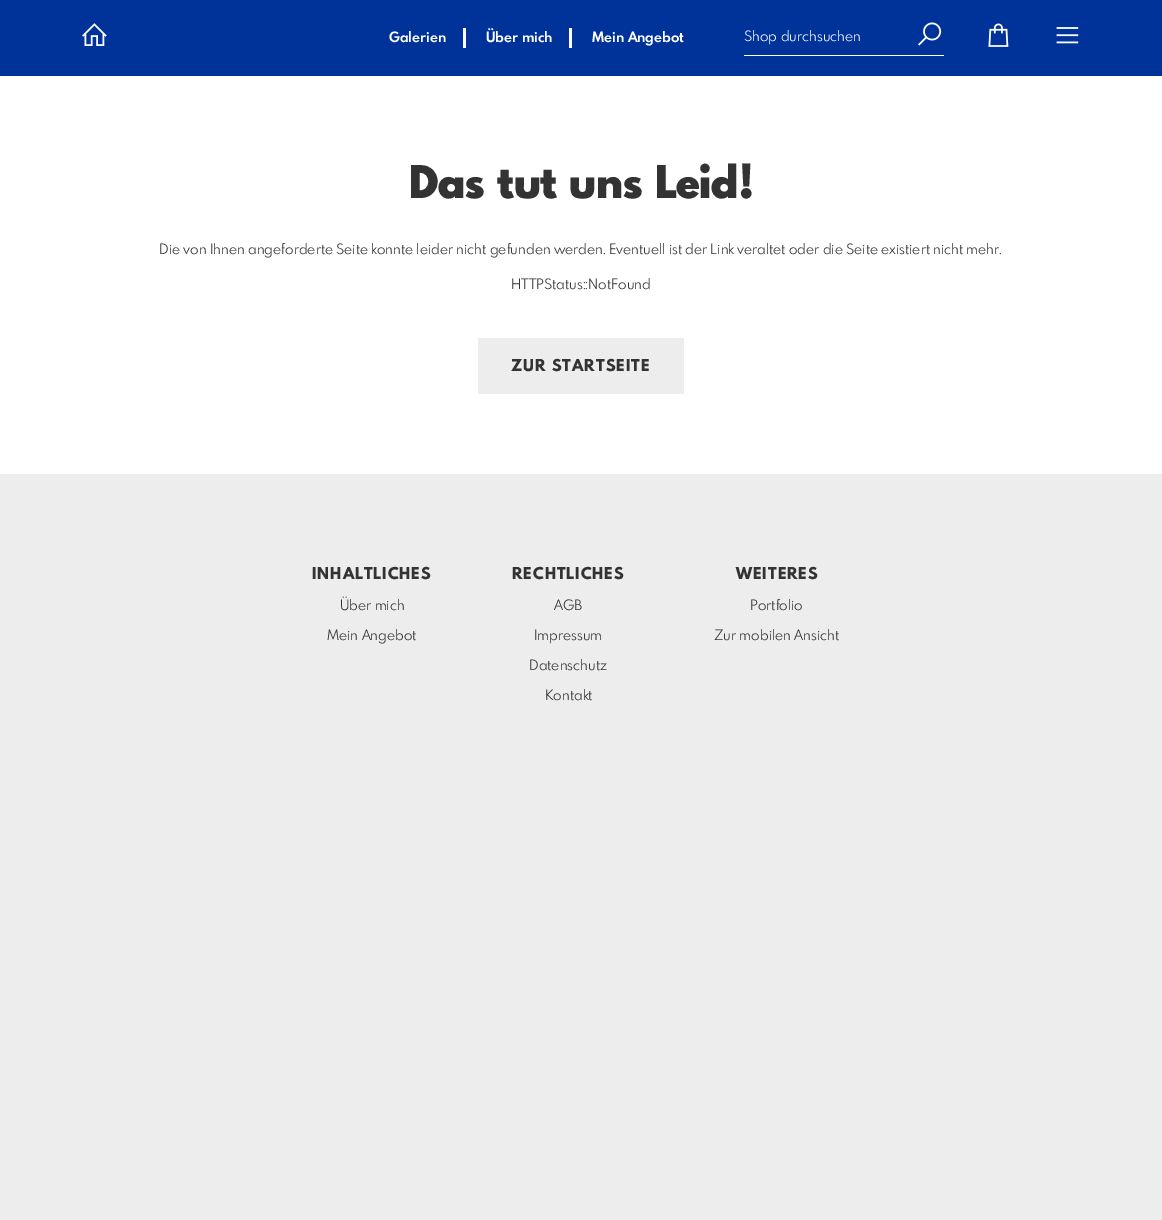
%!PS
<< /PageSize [1162 1220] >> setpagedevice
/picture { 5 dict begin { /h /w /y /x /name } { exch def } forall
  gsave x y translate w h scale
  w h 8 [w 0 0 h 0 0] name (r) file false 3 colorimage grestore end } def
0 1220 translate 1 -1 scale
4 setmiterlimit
0.929 setgray
0 0 1162 1220 rectfill
0 0.2 0.6 setrgbcolor
0 0 1162 76 rectfill
(img1.rgb) 82 23 25 23 picture
/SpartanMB-Bold [14 0 0 -14 0 0] selectfont
1 setgray
389 42 moveto (Galerien) show
463 28 3 20 rectfill
486 42 moveto (Über mich) show
569 28 3 20 rectfill
592 42 moveto (Mein Angebot) show
744 55 200 1 rectfill
/SpartanMB-Regular [14 0 0 -14 0 0] selectfont
744 41 moveto (Shop durchsuchen) show
(img2.rgb) 918 22 24 24 picture
(img3.rgb) 988 23 21 24 picture
(img4.rgb) 1056 27 23 17 picture
0 76 1162 398 rectfill
/SpartanMB-Black [44 0 0 -44 0 0] selectfont
0.2 setgray
409 198 moveto (Das tut uns Leid!) show
/SpartanMB-Regular [14 0 0 -14 0 0] selectfont
159 254 moveto (Die von Ihnen angeforderte Seite konnte leider nicht gefunden werden. Eventuell ist der Link veraltet oder die Seite existiert nicht mehr.) show
511 289 moveto (HTTPStatus::NotFound) show
0.929 setgray
478 338 206 56 rectfill
/SpartanMB-ExtraBold [16 0 0 -16 0 0] selectfont
0.2 setgray
511 371 moveto 1 0 (ZUR STARTSEITE) ashow
312 579 moveto 1 0 (INHALTLICHES) ashow
/SpartanMB-Regular [14 0 0 -14 0 0] selectfont
340 610 moveto (Über mich) show
327 640 moveto (Mein Angebot) show
/SpartanMB-ExtraBold [16 0 0 -16 0 0] selectfont
512 579 moveto 1 0 (RECHTLICHES) ashow
/SpartanMB-Regular [14 0 0 -14 0 0] selectfont
554 610 moveto (AGB) show
534 640 moveto (Impressum) show
529 670 moveto (Datenschutz) show
545 700 moveto (Kontakt) show
/SpartanMB-ExtraBold [16 0 0 -16 0 0] selectfont
736 579 moveto 1 0 (WEITERES) ashow
/SpartanMB-Regular [14 0 0 -14 0 0] selectfont
750 610 moveto (Portfolio) show
714 640 moveto (Zur mobilen Ansicht) show
showpage
